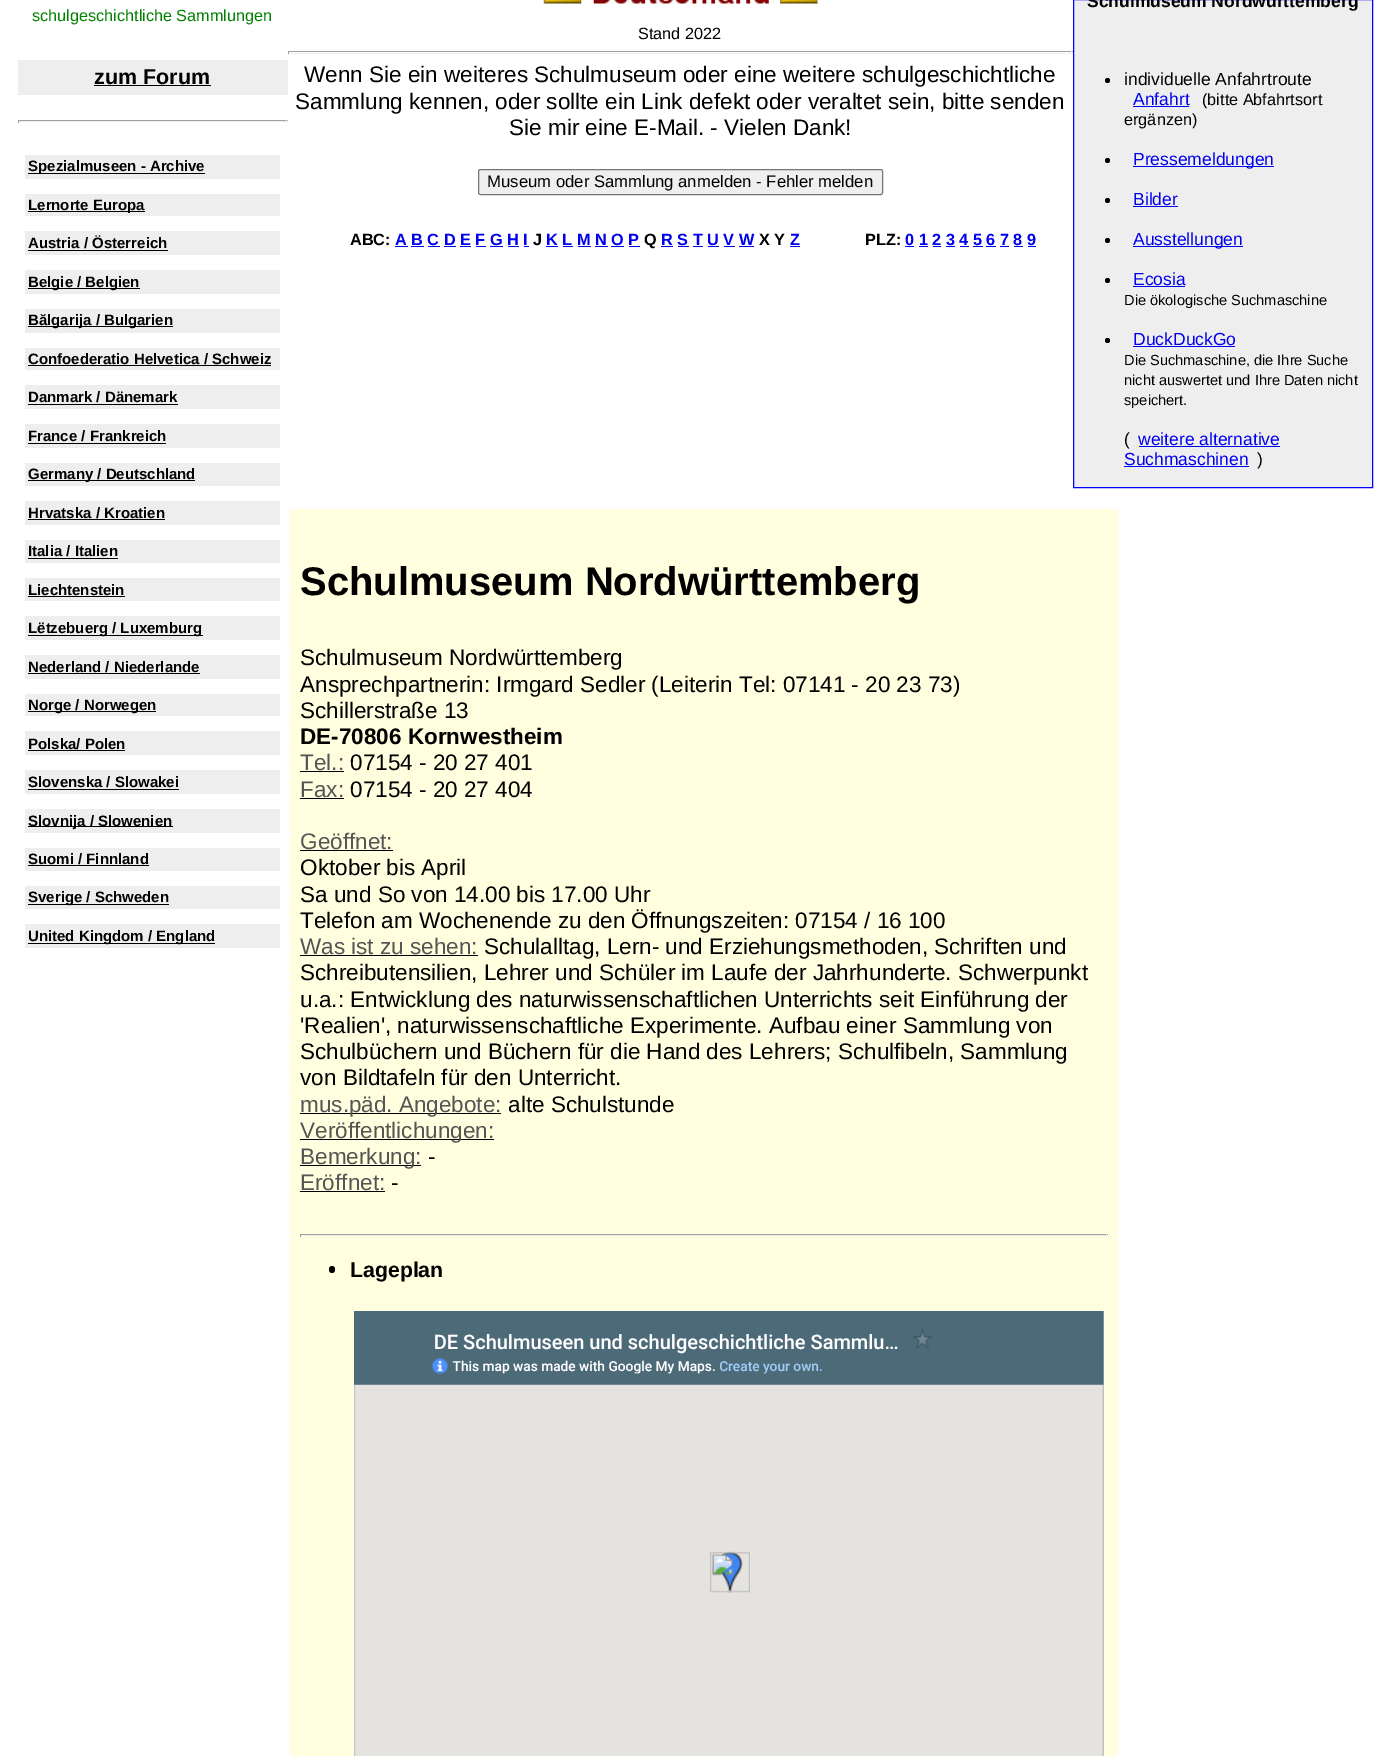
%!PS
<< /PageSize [1390 1756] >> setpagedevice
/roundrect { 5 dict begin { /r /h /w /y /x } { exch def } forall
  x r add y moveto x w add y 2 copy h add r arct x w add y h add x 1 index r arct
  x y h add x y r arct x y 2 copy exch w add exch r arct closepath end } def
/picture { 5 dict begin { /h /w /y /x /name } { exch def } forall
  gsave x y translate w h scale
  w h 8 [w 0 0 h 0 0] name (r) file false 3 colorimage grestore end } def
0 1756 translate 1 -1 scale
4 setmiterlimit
1 setgray
0 0 1390 1756 rectfill
/LiberationSans-Regular [16.25 0 0 -16.25 0 0] selectfont
0 0.502 0 setrgbcolor
32 21 moveto (schulgeschichtliche Sammlungen) show
0.933 setgray
18 60 270 35 rectfill
/LiberationSans-Bold [21.5 0 0 -21.5 0 0] selectfont
0 setgray
94 84 moveto (zum Forum) show
94 85 117 1 rectfill
0.624 setgray
18 120 270 1 rectfill
0.933 setgray
286 120 1 3 rectfill
18 121 270 1 rectfill
0.624 setgray
18 120 1 3 rectfill
0.933 setgray
25 155 255 24 rectfill
0 setgray
28 173 177 1 rectfill
/LiberationSans-Bold [15 0 0 -15 0 0] selectfont
28 171 moveto (Spezialmuseen - Archive) show
0.933 setgray
25 194 255 22 rectfill
0 setgray
28 211 117 1 rectfill
28 210 moveto (Lernorte Europa) show
0.933 setgray
25 231 255 24 rectfill
0 setgray
28 248 moveto (Austria / Österreich) show
28 250 140 1 rectfill
0.933 setgray
25 270 255 24 rectfill
0 setgray
28 288 112 1 rectfill
28 287 moveto (Belgie / Belgien) show
0.933 setgray
25 309 255 24 rectfill
0 setgray
28 326 145 1 rectfill
28 325 moveto (Bălgarija / Bulgarien) show
0.933 setgray
25 348 255 22 rectfill
0 setgray
28 364 moveto (Confoederatio Helvetica / Schweiz) show
28 365 243 1 rectfill
0.933 setgray
25 385 255 24 rectfill
0 setgray
28 402 moveto (Danmark / Dänemark) show
28 404 150 1 rectfill
0.933 setgray
25 424 255 24 rectfill
0 setgray
28 441 moveto (France / Frankreich) show
28 443 138 1 rectfill
0.933 setgray
25 463 255 23 rectfill
0 setgray
28 480 167 1 rectfill
28 479 moveto (Germany / Deutschland) show
0.933 setgray
25 501 255 24 rectfill
0 setgray
28 518 moveto (Hrvatska / Kroatien) show
28 519 137 1 rectfill
0.933 setgray
25 540 255 23 rectfill
0 setgray
28 556 moveto (Italia / Italien) show
28 558 90 1 rectfill
0.933 setgray
25 578 255 23 rectfill
0 setgray
28 595 moveto (Liechtenstein) show
28 596 97 1 rectfill
0.933 setgray
25 616 255 24 rectfill
0 setgray
28 635 175 1 rectfill
28 633 moveto (Lëtzebuerg / Luxemburg) show
0.933 setgray
25 655 255 24 rectfill
0 setgray
28 672 moveto (Nederland / Niederlande) show
28 673 172 1 rectfill
0.933 setgray
25 694 255 22 rectfill
0 setgray
28 711 128 1 rectfill
28 710 moveto (Norge / Norwegen) show
0.933 setgray
25 731 255 24 rectfill
0 setgray
28 749 moveto (Polska/ Polen) show
28 750 97 1 rectfill
0.933 setgray
25 770 255 24 rectfill
0 setgray
28 787 moveto (Slovenska / Slowakei) show
28 789 151 1 rectfill
0.933 setgray
25 809 255 24 rectfill
0 setgray
28 826 145 1 rectfill
28 826 moveto (Slovnija / Slowenien) show
0.933 setgray
25 848 255 23 rectfill
0 setgray
28 864 moveto (Suomi / Finnland) show
28 865 121 1 rectfill
0.933 setgray
25 886 255 23 rectfill
0 setgray
28 904 141 1 rectfill
28 902 moveto (Sverige / Schweden) show
0.933 setgray
25 924 255 24 rectfill
0 setgray
28 943 187 1 rectfill
28 941 moveto (United Kingdom / England) show
(img1.rgb) 543 0 39 4 picture
(img2.rgb) 589 0 186 4 picture
(img3.rgb) 780 0 38 4 picture
/LiberationSans-Regular [16.25 0 0 -16.25 0 0] selectfont
638 39 moveto (Stand 2022) show
0.624 setgray
288 51 785 1 rectfill
0.933 setgray
1071 51 1 3 rectfill
288 53 785 1 rectfill
0.624 setgray
288 51 1 3 rectfill
/LiberationSans-Regular [22.5 0 0 -22.5 0 0] selectfont
0 setgray
304 82 moveto (Wenn Sie ein weiteres Schulmuseum oder eine weitere schulgeschichtliche) show
295 109 moveto (Sammlung kennen, oder sollte ein Link defekt oder veraltet sein, bitte senden) show
509 135 moveto (Sie mir eine E-Mail. - Vielen Dank!) show
0.937 setgray
478.5 169.5 404 25 2 roundrect gsave fill grestore
0.463 setgray
stroke
/LiberationSans-Regular [16.7 0 0 -16.7 0 0] selectfont
0 setgray
487 187 moveto (Museum oder Sammlung anmelden - Fehler melden) show
/LiberationSans-Bold [16.25 0 0 -16.25 0 0] selectfont
350 245 moveto (ABC:) show
0 0 0.933 setrgbcolor
395 245 moveto (A B C D E F G H I) show
395 246 13 1 rectfill
411 246 13 1 rectfill
428 246 12 1 rectfill
444 246 12 1 rectfill
460 246 11 1 rectfill
476 246 10 1 rectfill
490 246 13 1 rectfill
508 246 11 1 rectfill
524 246 5 1 rectfill
0 setgray
533 245 moveto (J) show
0 0 0.933 setrgbcolor
546 245 moveto (K L M N O P) show
546 246 12 1 rectfill
563 246 10 1 rectfill
578 246 13 1 rectfill
595 246 13 1 rectfill
611 246 13 1 rectfill
629 246 11 1 rectfill
0 setgray
644 245 moveto (Q) show
0 0 0.933 setrgbcolor
661 245 moveto (R S T U V W) show
661 246 12 1 rectfill
678 246 11 1 rectfill
693 246 10 1 rectfill
708 246 11 1 rectfill
724 246 11 1 rectfill
739 246 15 1 rectfill
0 setgray
759 245 moveto (X Y) show
0 0 0.933 setrgbcolor
790 245 moveto (Z) show
790 246 10 1 rectfill
0 setgray
865 245 moveto (PLZ:) show
0 0 0.933 setrgbcolor
905 245 moveto (0 1 2 3 4 5 6 7 8 9) show
905 246 9 1 rectfill
919 246 9 1 rectfill
933 246 8 1 rectfill
946 246 9 1 rectfill
960 246 9 1 rectfill
973 246 10 1 rectfill
986 246 10 1 rectfill
1000 246 9 1 rectfill
1014 246 9 1 rectfill
1028 246 8 1 rectfill
1 1 0.878 setrgbcolor
290 509 828 1247 rectfill
/LiberationSans-Bold [40 0 0 -40 0 0] selectfont
0 setgray
300 595 moveto (Schulmuseum Nordwürttemberg) show
/LiberationSans-Regular [22.5 0 0 -22.5 0 0] selectfont
300 665 moveto (Schulmuseum Nordwürttemberg) show
300 692 moveto (Ansprechpartnerin: Irmgard Sedler \(Leiterin Tel: 07141 - 20 23 73\)) show
300 718 moveto (Schillerstraße 13) show
/LiberationSans-Bold [22.5 0 0 -22.5 0 0] selectfont
300 744 moveto (DE-70806 Kornwestheim) show
/LiberationSans-Regular [22.5 0 0 -22.5 0 0] selectfont
0.333 setgray
300 770 moveto (Tel.:) show
0 setgray
300 771 44 1 rectfill
350 770 moveto (07154 - 20 27 401) show
0.333 setgray
300 797 moveto (Fax:) show
0 setgray
300 798 44 1 rectfill
350 797 moveto (07154 - 20 27 404) show
0.333 setgray
300 849 moveto (Geöffnet:) show
0 setgray
300 850 93 1 rectfill
300 875 moveto (Oktober bis April) show
300 902 moveto (Sa und So von 14.00 bis 17.00 Uhr) show
300 928 moveto (Telefon am Wochenende zu den Öffnungszeiten: 07154 / 16 100) show
0.333 setgray
300 954 moveto (Was ist zu sehen:) show
0 setgray
300 955 178 1 rectfill
484 954 moveto (Schulalltag, Lern- und Erziehungsmethoden, Schriften und) show
300 980 moveto (Schreibutensilien, Lehrer und Schüler im Laufe der Jahrhunderte. Schwerpunkt) show
300 1007 moveto (u.a.: Entwicklung des naturwissenschaftlichen Unterrichts seit Einführung der) show
300 1033 moveto ('Realien', naturwissenschaftliche Experimente. Aufbau einer Sammlung von) show
300 1059 moveto (Schulbüchern und Büchern für die Hand des Lehrers; Schulfibeln, Sammlung) show
300 1085 moveto (von Bildtafeln für den Unterricht.) show
300 1113 201 1 rectfill
0.333 setgray
300 1112 moveto (mus.päd. Angebote:) show
0 setgray
508 1112 moveto (alte Schulstunde) show
300 1139 194 1 rectfill
0.333 setgray
300 1138 moveto (Veröffentlichungen:) show
0 setgray
300 1165 121 1 rectfill
0.333 setgray
300 1164 moveto (Bemerkung:) show
0 setgray
428 1164 moveto (-) show
0.333 setgray
300 1190 moveto (Eröffnet:) show
0 setgray
300 1191 85 1 rectfill
391 1190 moveto (-) show
0.624 setgray
300 1234 808 1 rectfill
0.933 setgray
1106 1234 1 3 rectfill
300 1235 808 1 rectfill
0.624 setgray
300 1234 1 3 rectfill
0 setgray
329 1266 6 7 3 roundrect fill
/LiberationSans-Bold [21.25 0 0 -21.25 0 0] selectfont
350 1277 moveto (Lageplan) show
(img4.rgb) 354 1311 750 445 picture
0.933 setgray
newpath 1073.5 -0.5 moveto 1372.5 -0.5 lineto 1372.5 487.5 lineto 1073.5 487.5 lineto closepath gsave fill grestore
0 0 1 setrgbcolor
stroke
/LiberationSans-Bold [17.5 0 0 -17.5 0 0] selectfont
0 setgray
1087 7 moveto (Schulmuseum Nordwürttemberg) show
newpath 1107.5 80.5 2.5 0 360 arc closepath fill
/LiberationSans-Regular [17.5 0 0 -17.5 0 0] selectfont
1124 85 moveto (individuelle Anfahrtroute) show
0 0 0.933 setrgbcolor
1133 105 moveto (Anfahrt) show
1133 106 56 1 rectfill
/LiberationSans-Regular [16.25 0 0 -16.25 0 0] selectfont
0 setgray
1202 105 moveto (\(bitte Abfahrtsort) show
1124 125 moveto (ergänzen\)) show
newpath 1107.5 160.5 2.5 0 360 arc closepath fill
0 0 0.933 setrgbcolor
1133 166 141 1 rectfill
/LiberationSans-Regular [17.5 0 0 -17.5 0 0] selectfont
1133 165 moveto (Pressemeldungen) show
0 setgray
newpath 1107.5 200.5 2.5 0 360 arc closepath fill
0 0 0.933 setrgbcolor
1133 205 moveto (Bilder) show
1133 206 45 1 rectfill
0 setgray
newpath 1107.5 240.5 2.5 0 360 arc closepath fill
0 0 0.933 setrgbcolor
1133 246 110 1 rectfill
1133 245 moveto (Ausstellungen) show
0 setgray
newpath 1107.5 280.5 2.5 0 360 arc closepath fill
0 0 0.933 setrgbcolor
1133 285 moveto (Ecosia) show
1133 286 52 1 rectfill
/LiberationSans-Regular [14.6 0 0 -14.6 0 0] selectfont
0 setgray
1124 305 moveto (Die ökologische Suchmaschine) show
newpath 1107.5 340.5 2.5 0 360 arc closepath fill
/LiberationSans-Regular [17.5 0 0 -17.5 0 0] selectfont
0 0 0.933 setrgbcolor
1133 345 moveto (DuckDuckGo) show
1133 346 102 1 rectfill
/LiberationSans-Regular [14.6 0 0 -14.6 0 0] selectfont
0 setgray
1124 365 moveto (Die Suchmaschine, die Ihre Suche) show
1124 385 moveto (nicht auswertet und Ihre Daten nicht) show
1124 405 moveto (speichert.) show
/LiberationSans-Regular [17.5 0 0 -17.5 0 0] selectfont
1124 445 moveto (\() show
0 0 0.933 setrgbcolor
1138 445 moveto (weitere alternative) show
1139 446 141 1 rectfill
1124 465 moveto (Suchmaschinen) show
1124 466 125 1 rectfill
0 setgray
1257 465 moveto (\)) show
showpage
